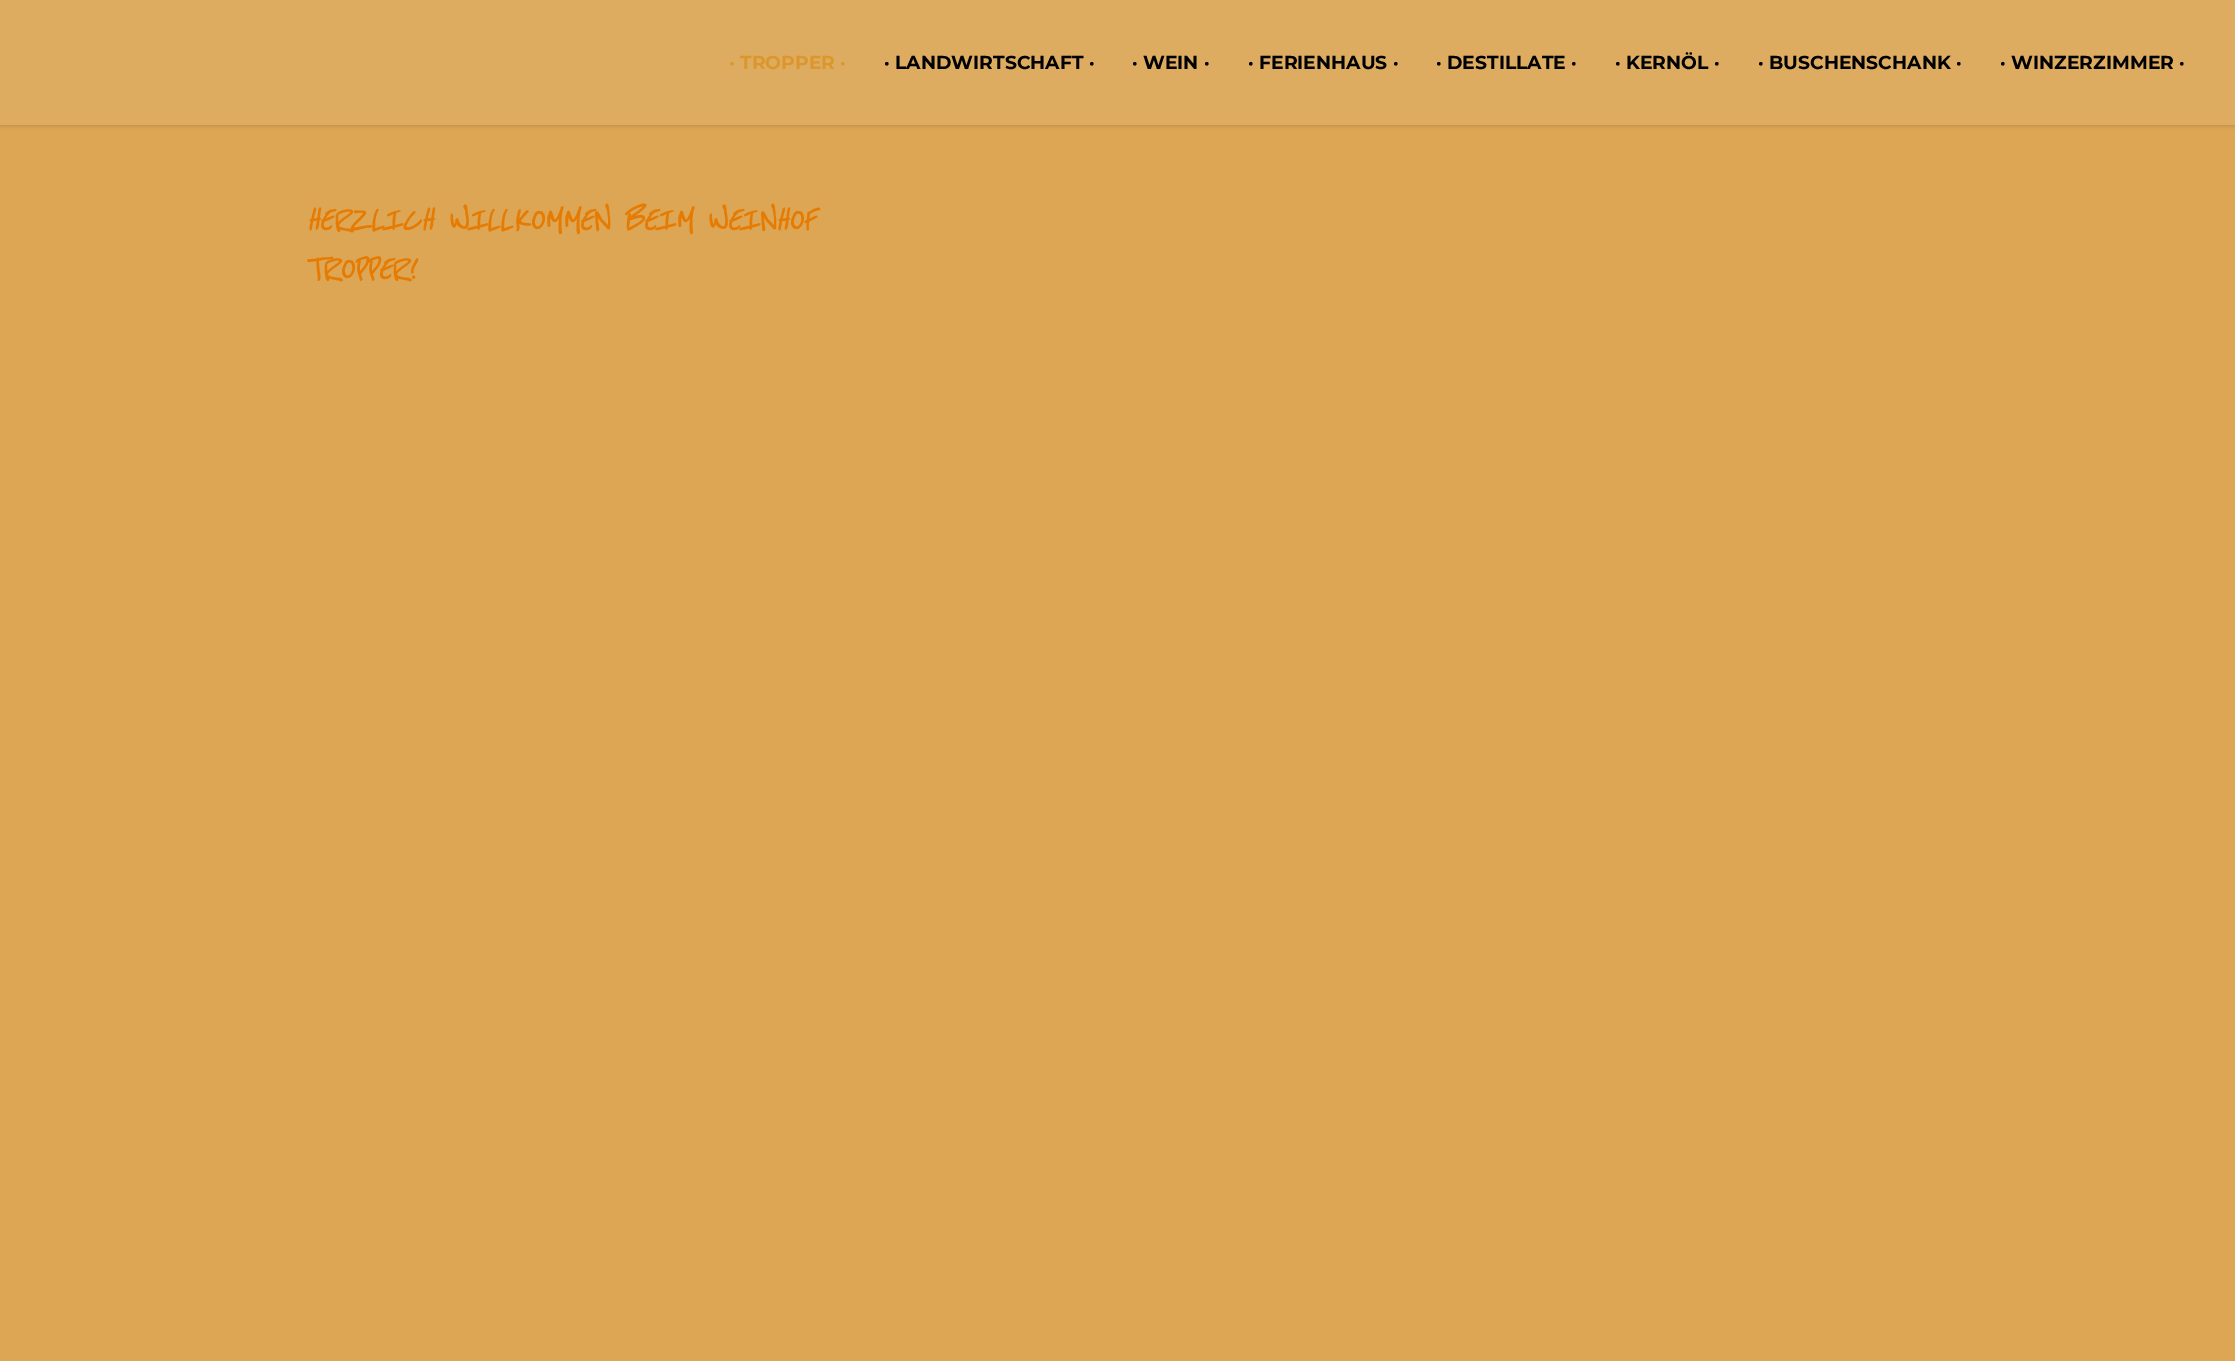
%!PS
<< /PageSize [2235 1361] /PageUsesTransparency true >> setpagedevice
/alpha { dup .setfillconstantalpha .setstrokeconstantalpha } def
/roundrect { 5 dict begin { /r /h /w /y /x } { exch def } forall
  x r add y moveto x w add y 2 copy h add r arct x w add y h add x 1 index r arct
  x y h add x y r arct x y 2 copy exch w add exch r arct closepath end } def
/shadow { 12 dict begin { /a /b /q /h /w /y /x } { exch def } forall gsave /was 0 def
  9 -2 -9 { dup b mul 4 div /e exch def 1 sub .425 mul 2.718 exch exp 1 add a .99 .min exch div /now exch def
    1 1 now sub 1 was sub div sub alpha /was now def
    w h .min e 2 mul add 0 gt { x e sub y e sub w e 2 mul add h e 2 mul add
      q e add b .6 mul add w h .min 2 div e add .min 0 .max roundrect fill } if } for grestore end } def
0 .pushpdf14devicefilter
0 1361 translate 1 -1 scale
4 setmiterlimit
0.867 0.651 0.329 setrgbcolor
0 0 2235 1361 rectfill
0 setgray
0 1 2235 125 0 2 0.15 shadow
0.867 0.675 0.38 setrgbcolor
0 0 2235 125 rectfill
/Montserrat-Bold [18.75 0 0 -18.75 0 0] selectfont
0.867 0.588 0.173 setrgbcolor
729 69 moveto (· TROPPER ·) show
0 setgray
884 69 moveto (· LANDWIRTSCHAFT ·) show
1132 69 moveto (· WEIN ·) show
1248 69 moveto (· FERIENHAUS ·) show
1436 69 moveto (· DESTILLATE ·) show
1615 69 moveto (· KERNÖL ·) show
1758 69 moveto (· BUSCHENSCHANK ·) show
2000 69 moveto (· WINZERZIMMER ·) show
/ReenieBeanie-BoldItalic [37.5 0 0 -37.5 0 0] selectfont
0.898 0.482 0.008 setrgbcolor
305 230 moveto -1.1 0 (HERZLICH WILLKOMMEN BEIM WEINHOF) ashow
305 279 moveto -1.1 0 (TROPPER!) ashow
.poppdf14devicefilter showpage
